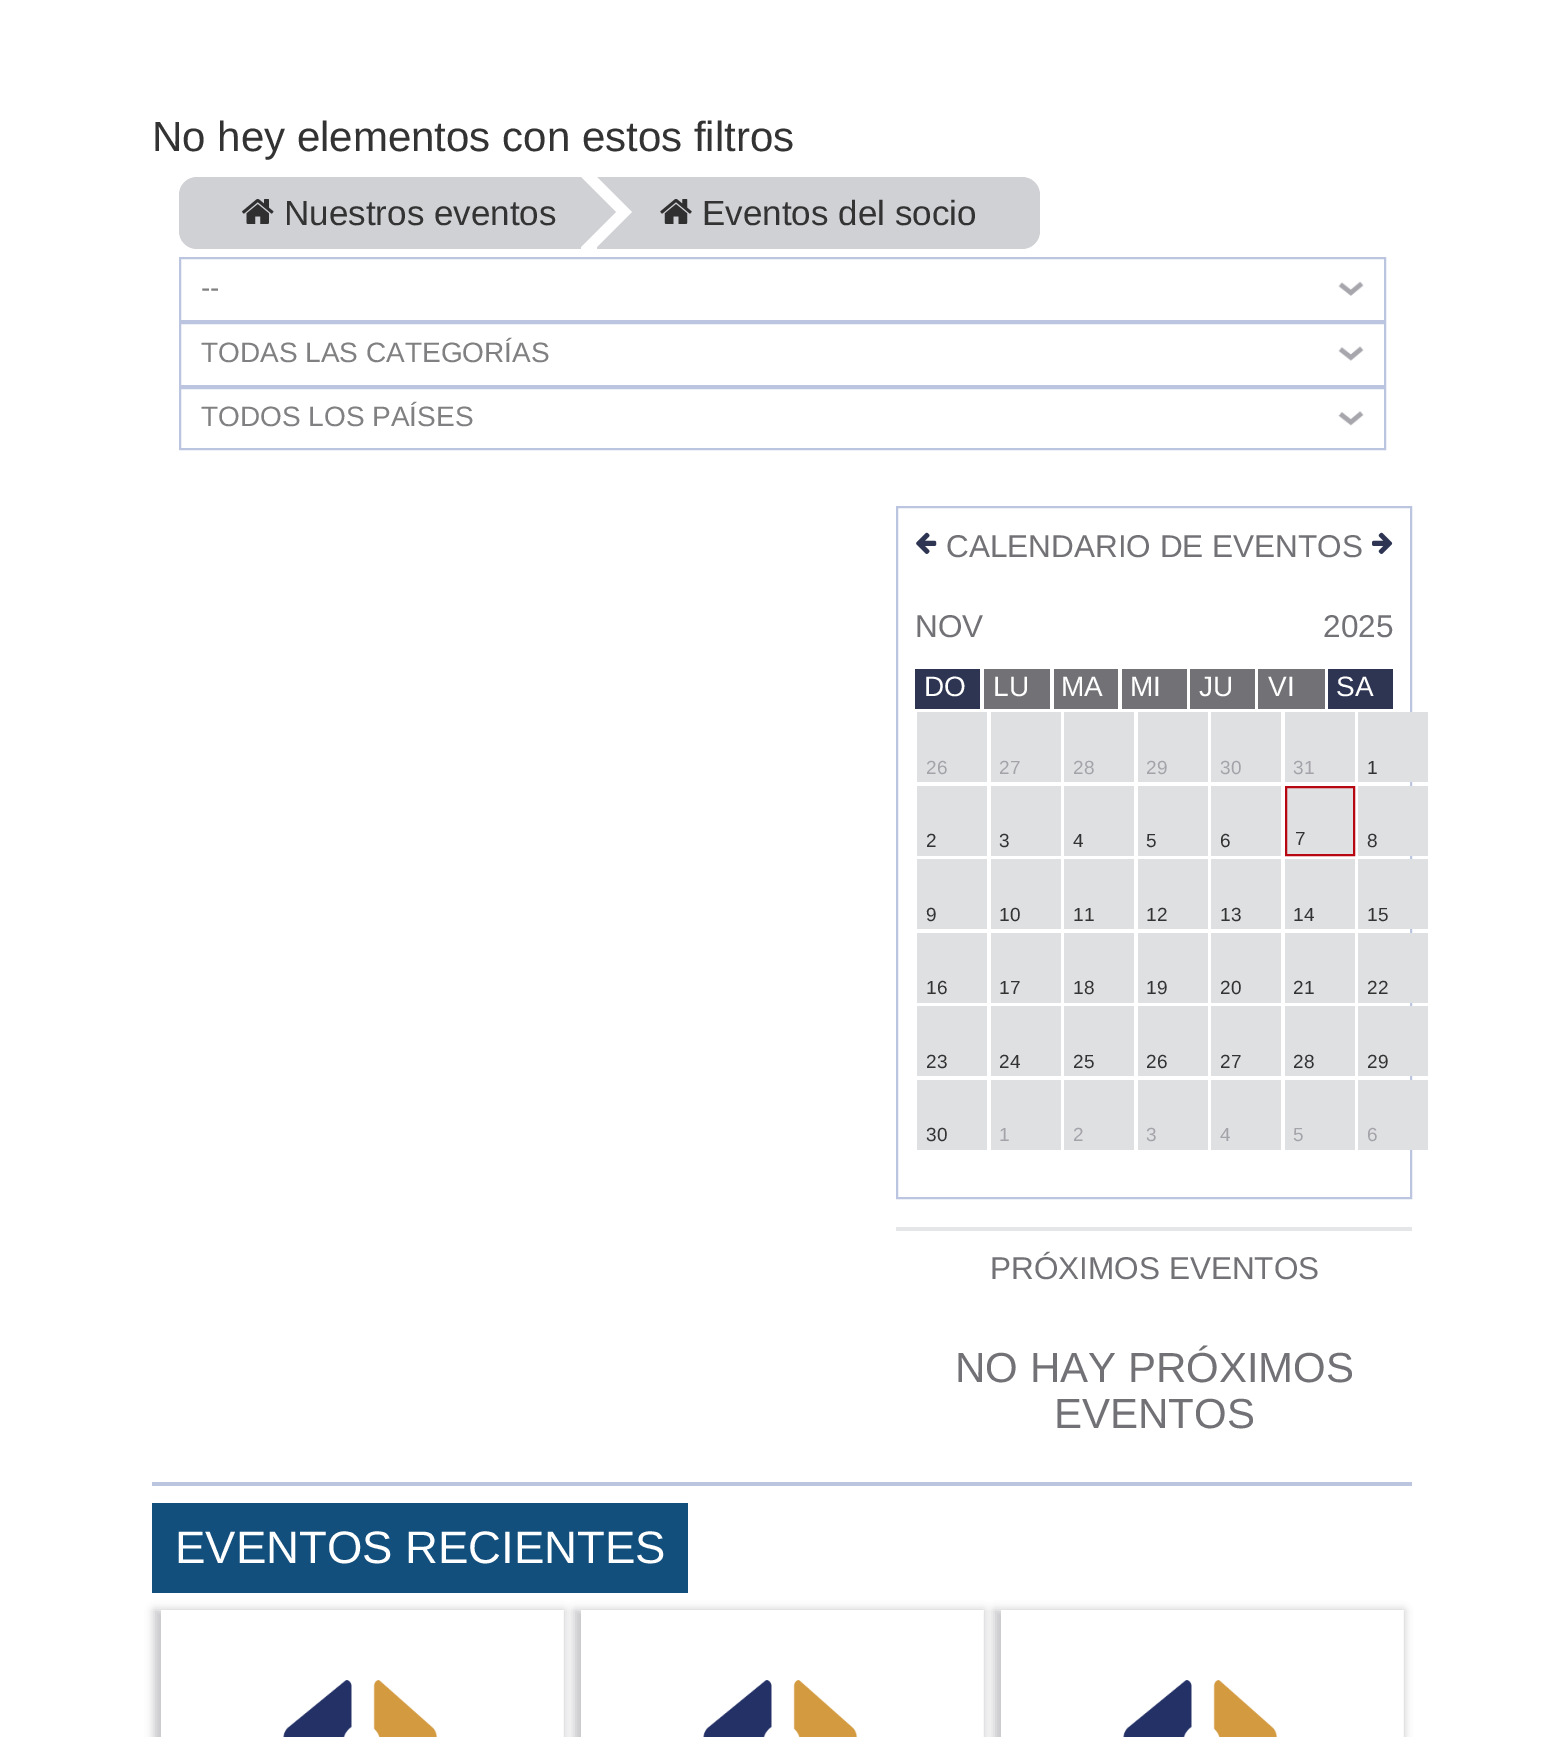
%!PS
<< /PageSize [1563 1737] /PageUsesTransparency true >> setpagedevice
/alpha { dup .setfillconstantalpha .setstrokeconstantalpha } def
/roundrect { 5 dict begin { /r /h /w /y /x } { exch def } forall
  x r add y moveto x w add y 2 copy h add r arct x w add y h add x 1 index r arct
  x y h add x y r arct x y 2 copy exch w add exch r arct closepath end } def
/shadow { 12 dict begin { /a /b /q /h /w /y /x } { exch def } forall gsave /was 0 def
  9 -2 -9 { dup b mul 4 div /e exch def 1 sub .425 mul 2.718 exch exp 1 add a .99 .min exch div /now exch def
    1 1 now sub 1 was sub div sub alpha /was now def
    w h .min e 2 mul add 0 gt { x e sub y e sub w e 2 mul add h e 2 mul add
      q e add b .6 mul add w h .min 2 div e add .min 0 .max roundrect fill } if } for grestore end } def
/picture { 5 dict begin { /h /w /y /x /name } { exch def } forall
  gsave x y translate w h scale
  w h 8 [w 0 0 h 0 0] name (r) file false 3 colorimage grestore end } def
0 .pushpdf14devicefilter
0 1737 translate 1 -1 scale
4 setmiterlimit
1 setgray
0 0 1563 1737 rectfill
/LiberationSans-Regular [42 0 0 -42 0 0] selectfont
0.2 setgray
152 151 moveto (No hey elementos con estos filtros) show
0.816 0.82 0.835 setrgbcolor
newpath 197 177 moveto 581 177 lineto 581 249 lineto 197 249 lineto 187 249 179 241 179 231 curveto 179 195 lineto 179 185 187 177 197 177 curveto closepath fill
(img1.rgb) 242 199 32 25 picture
/LiberationSans-Regular [35 0 0 -35 0 0] selectfont
0.2 setgray
284 225 moveto (Nuestros eventos) show
0.816 0.82 0.835 setrgbcolor
newpath 597 177 moveto 1022 177 lineto 1032 177 1040 185 1040 195 curveto 1040 231 lineto 1040 241 1032 249 1022 249 curveto 597 249 lineto closepath fill
1 setgray
newpath 597 247 moveto 597 177 lineto 632 212 lineto closepath fill
0.816 0.82 0.835 setrgbcolor
newpath 581 247 moveto 581 177 lineto 616 212 lineto closepath fill
(img2.rgb) 660 199 32 25 picture
0.2 setgray
702 225 moveto (Eventos del socio) show
0.737 0.773 0.878 setrgbcolor
2 setlinewidth
180 258 1205 63 rectstroke
/LiberationSans-Regular [28 0 0 -28 0 0] selectfont
0.502 0.502 0.51 setrgbcolor
201 297 moveto (--) show
(img3.rgb) 1338 281 26 15 picture
0.737 0.773 0.878 setrgbcolor
180 323 1205 63 rectstroke
0.502 0.502 0.51 setrgbcolor
201 362 moveto (TODAS LAS CATEGORÍAS) show
(img4.rgb) 1338 346 26 15 picture
0.737 0.773 0.878 setrgbcolor
180 388 1205 61 rectstroke
0.502 0.502 0.51 setrgbcolor
201 426 moveto (TODOS LOS PAÍSES) show
(img5.rgb) 1338 411 26 15 picture
0.737 0.773 0.878 setrgbcolor
897 507 514 691 rectstroke
(img6.rgb) 916 532 21 22 picture
/LiberationSans-Regular [31.5 0 0 -31.5 0 0] selectfont
0.447 0.443 0.463 setrgbcolor
946 557 moveto (CALENDARIO DE EVENTOS) show
(img7.rgb) 1372 532 21 22 picture
915 637 moveto (NOV) show
1323 637 moveto (2025) show
0.18 0.208 0.322 setrgbcolor
915 669 65 40 rectfill
/LiberationSans-Regular [28 0 0 -28 0 0] selectfont
1 setgray
924 696 moveto (DO) show
0.447 0.443 0.463 setrgbcolor
984 669 66 40 rectfill
1 setgray
993 696 moveto (LU) show
0.447 0.443 0.463 setrgbcolor
1054 669 64 40 rectfill
1 setgray
1061 696 moveto (MA) show
0.447 0.443 0.463 setrgbcolor
1122 669 65 40 rectfill
1 setgray
1130 696 moveto (MI) show
0.447 0.443 0.463 setrgbcolor
1190 669 65 40 rectfill
1 setgray
1199 696 moveto (JU) show
0.447 0.443 0.463 setrgbcolor
1258 669 67 40 rectfill
1 setgray
1268 696 moveto (VI) show
0.18 0.208 0.322 setrgbcolor
1328 669 65 40 rectfill
1 setgray
1336 696 moveto (SA) show
0.875 0.878 0.886 setrgbcolor
917 712 70 70 rectfill
/LiberationSans-Regular [19 0 0 -19 0 0] selectfont
0.643 0.639 0.663 setrgbcolor
926 774 moveto (26) show
0.875 0.878 0.886 setrgbcolor
991 712 70 70 rectfill
0.643 0.639 0.663 setrgbcolor
999 774 moveto (27) show
0.875 0.878 0.886 setrgbcolor
1064 712 70 70 rectfill
0.643 0.639 0.663 setrgbcolor
1073 774 moveto (28) show
0.875 0.878 0.886 setrgbcolor
1138 712 70 70 rectfill
0.643 0.639 0.663 setrgbcolor
1146 774 moveto (29) show
0.875 0.878 0.886 setrgbcolor
1211 712 70 70 rectfill
0.643 0.639 0.663 setrgbcolor
1220 774 moveto (30) show
0.875 0.878 0.886 setrgbcolor
1285 712 70 70 rectfill
0.643 0.639 0.663 setrgbcolor
1293 774 moveto (31) show
0.875 0.878 0.886 setrgbcolor
1358 712 70 70 rectfill
0.2 setgray
1367 774 moveto (1) show
0.875 0.878 0.886 setrgbcolor
917 786 70 70 rectfill
0.2 setgray
926 847 moveto (2) show
0.875 0.878 0.886 setrgbcolor
991 786 70 70 rectfill
0.2 setgray
999 847 moveto (3) show
0.875 0.878 0.886 setrgbcolor
1064 786 70 70 rectfill
0.2 setgray
1073 847 moveto (4) show
0.875 0.878 0.886 setrgbcolor
1138 786 70 70 rectfill
0.2 setgray
1146 847 moveto (5) show
0.875 0.878 0.886 setrgbcolor
1211 786 70 70 rectfill
0.2 setgray
1220 847 moveto (6) show
0.875 0.878 0.886 setrgbcolor
newpath 1286 787 moveto 1354 787 lineto 1354 855 lineto 1286 855 lineto closepath gsave fill grestore
0.718 0.031 0.067 setrgbcolor
stroke
0.2 setgray
1295 845 moveto (7) show
0.875 0.878 0.886 setrgbcolor
1358 786 70 70 rectfill
0.2 setgray
1367 847 moveto (8) show
0.875 0.878 0.886 setrgbcolor
917 859 70 70 rectfill
0.2 setgray
926 921 moveto (9) show
0.875 0.878 0.886 setrgbcolor
991 859 70 70 rectfill
0.2 setgray
999 921 moveto (10) show
0.875 0.878 0.886 setrgbcolor
1064 859 70 70 rectfill
0.2 setgray
1073 921 moveto (11) show
0.875 0.878 0.886 setrgbcolor
1138 859 70 70 rectfill
0.2 setgray
1146 921 moveto (12) show
0.875 0.878 0.886 setrgbcolor
1211 859 70 70 rectfill
0.2 setgray
1220 921 moveto (13) show
0.875 0.878 0.886 setrgbcolor
1285 859 70 70 rectfill
0.2 setgray
1293 921 moveto (14) show
0.875 0.878 0.886 setrgbcolor
1358 859 70 70 rectfill
0.2 setgray
1367 921 moveto (15) show
0.875 0.878 0.886 setrgbcolor
917 933 70 70 rectfill
0.2 setgray
926 994 moveto (16) show
0.875 0.878 0.886 setrgbcolor
991 933 70 70 rectfill
0.2 setgray
999 994 moveto (17) show
0.875 0.878 0.886 setrgbcolor
1064 933 70 70 rectfill
0.2 setgray
1073 994 moveto (18) show
0.875 0.878 0.886 setrgbcolor
1138 933 70 70 rectfill
0.2 setgray
1146 994 moveto (19) show
0.875 0.878 0.886 setrgbcolor
1211 933 70 70 rectfill
0.2 setgray
1220 994 moveto (20) show
0.875 0.878 0.886 setrgbcolor
1285 933 70 70 rectfill
0.2 setgray
1293 994 moveto (21) show
0.875 0.878 0.886 setrgbcolor
1358 933 70 70 rectfill
0.2 setgray
1367 994 moveto (22) show
0.875 0.878 0.886 setrgbcolor
917 1006 70 70 rectfill
0.2 setgray
926 1068 moveto (23) show
0.875 0.878 0.886 setrgbcolor
991 1006 70 70 rectfill
0.2 setgray
999 1068 moveto (24) show
0.875 0.878 0.886 setrgbcolor
1064 1006 70 70 rectfill
0.2 setgray
1073 1068 moveto (25) show
0.875 0.878 0.886 setrgbcolor
1138 1006 70 70 rectfill
0.2 setgray
1146 1068 moveto (26) show
0.875 0.878 0.886 setrgbcolor
1211 1006 70 70 rectfill
0.2 setgray
1220 1068 moveto (27) show
0.875 0.878 0.886 setrgbcolor
1285 1006 70 70 rectfill
0.2 setgray
1293 1068 moveto (28) show
0.875 0.878 0.886 setrgbcolor
1358 1006 70 70 rectfill
0.2 setgray
1367 1068 moveto (29) show
0.875 0.878 0.886 setrgbcolor
917 1080 70 70 rectfill
0.2 setgray
926 1141 moveto (30) show
0.875 0.878 0.886 setrgbcolor
991 1080 70 70 rectfill
0.643 0.639 0.663 setrgbcolor
999 1141 moveto (1) show
0.875 0.878 0.886 setrgbcolor
1064 1080 70 70 rectfill
0.643 0.639 0.663 setrgbcolor
1073 1141 moveto (2) show
0.875 0.878 0.886 setrgbcolor
1138 1080 70 70 rectfill
0.643 0.639 0.663 setrgbcolor
1146 1141 moveto (3) show
0.875 0.878 0.886 setrgbcolor
1211 1080 70 70 rectfill
0.643 0.639 0.663 setrgbcolor
1220 1141 moveto (4) show
0.875 0.878 0.886 setrgbcolor
1285 1080 70 70 rectfill
0.643 0.639 0.663 setrgbcolor
1293 1141 moveto (5) show
0.875 0.878 0.886 setrgbcolor
1358 1080 70 70 rectfill
0.643 0.639 0.663 setrgbcolor
1367 1141 moveto (6) show
0.898 0.902 0.91 setrgbcolor
896 1227 516 4 rectfill
/LiberationSans-Regular [31.5 0 0 -31.5 0 0] selectfont
0.447 0.443 0.463 setrgbcolor
990 1279 moveto (PRÓXIMOS EVENTOS) show
/LiberationSans-Regular [42 0 0 -42 0 0] selectfont
955 1382 moveto (NO HAY PRÓXIMOS) show
1054 1428 moveto (EVENTOS) show
0.737 0.773 0.878 setrgbcolor
152 1482 1260 4 rectfill
0.075 0.31 0.49 setrgbcolor
152 1503 536 90 rectfill
/LiberationSans-Regular [45.5 0 0 -45.5 0 0] selectfont
1 setgray
175 1563 moveto (EVENTOS RECIENTES) show
gsave
newpath 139 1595 moveto 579 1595 lineto 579 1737 lineto 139 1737 lineto closepath 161 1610 moveto 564 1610 lineto 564 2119 lineto 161 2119 lineto closepath eoclip newpath
0.573 0.569 0.588 setrgbcolor
154 1610 410 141 0 4.5 0.5 shadow
grestore
(img8.rgb) 283 1610 281 127 picture
gsave
newpath 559 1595 moveto 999 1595 lineto 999 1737 lineto 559 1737 lineto closepath 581 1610 moveto 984 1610 lineto 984 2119 lineto 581 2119 lineto closepath eoclip newpath
0.573 0.569 0.588 setrgbcolor
574 1610 410 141 0 4.5 0.5 shadow
grestore
(img9.rgb) 703 1610 281 127 picture
gsave
newpath 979 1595 moveto 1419 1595 lineto 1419 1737 lineto 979 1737 lineto closepath 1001 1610 moveto 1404 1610 lineto 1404 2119 lineto 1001 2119 lineto closepath eoclip newpath
0.573 0.569 0.588 setrgbcolor
994 1610 410 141 0 4.5 0.5 shadow
grestore
(img8.rgb) 1123 1610 281 127 picture
.poppdf14devicefilter showpage
